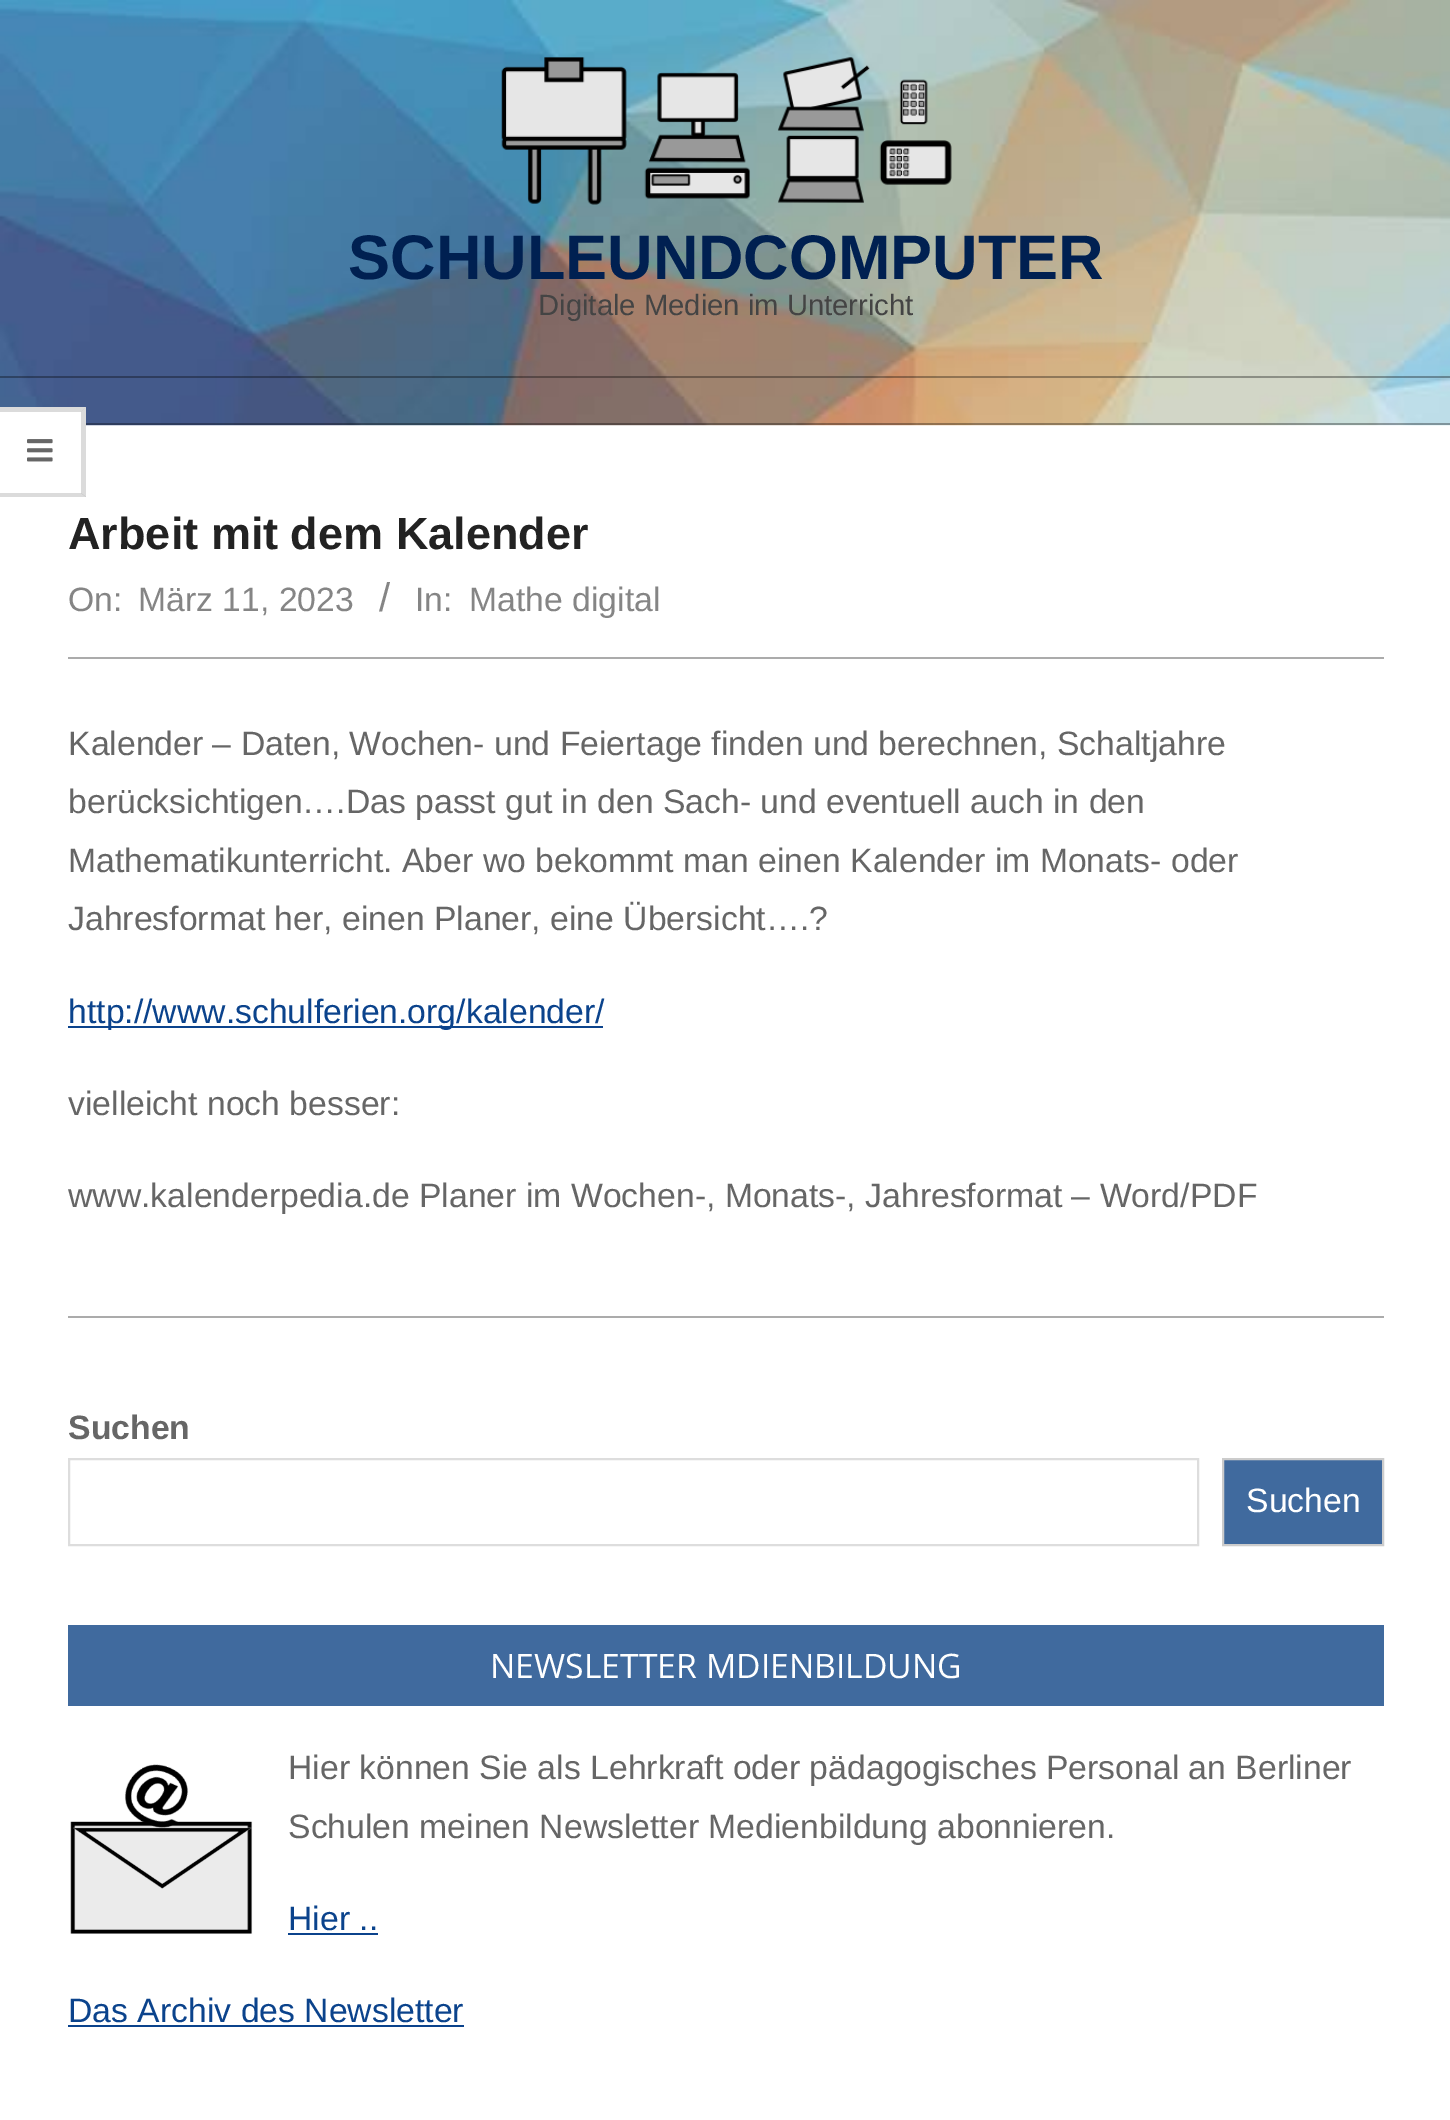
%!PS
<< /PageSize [1450 2120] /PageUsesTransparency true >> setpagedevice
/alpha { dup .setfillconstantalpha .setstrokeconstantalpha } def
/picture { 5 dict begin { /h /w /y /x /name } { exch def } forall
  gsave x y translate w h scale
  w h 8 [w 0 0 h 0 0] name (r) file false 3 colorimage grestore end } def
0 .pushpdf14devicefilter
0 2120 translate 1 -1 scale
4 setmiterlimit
1 setgray
0 0 1450 2120 rectfill
(img1.rgb) 0 0 1450 426 picture
0.33 alpha
0 setgray
86 423 1364 2 rectfill
1 alpha
(img2.rgb) 501 57 451 148 picture
/LiberationSans-Bold [63 0 0 -63 0 0] selectfont
0 0.125 0.318 setrgbcolor
348 279 moveto (SCHULEUNDCOMPUTER) show
/LiberationSans-Regular [29.25 0 0 -29.25 0 0] selectfont
0.267 setgray
538 315 moveto (Digitale Medien im Unterricht) show
0.33 alpha
0 setgray
0 376 1450 2 rectfill
1 alpha
1 setgray
0 407 86 19 rectfill
0.859 setgray
newpath 0 407 moveto 86 407 lineto 81 412 lineto 0 412 lineto closepath fill
0.14 alpha
0 setgray
newpath 86 407 moveto 86 497 lineto 81 493 lineto 81 412 lineto closepath fill
newpath 86 497 moveto 0 497 lineto 0 493 lineto 81 493 lineto closepath fill
1 alpha
(img3.rgb) 27 439 26 23 picture
0.671 setgray
68 657 1316 2 rectfill
/LiberationSans-Bold [45 0 0 -45 0 0] selectfont
0.133 setgray
68 549 moveto (Arbeit mit dem Kalender) show
/LiberationSans-Regular [33.75 0 0 -33.75 0 0] selectfont
0.522 setgray
68 611 moveto (On:) show
138 611 moveto (März 11, 2023) show
/LiberationSans-Regular [40 0 0 -40 0 0] selectfont
379 611 moveto (/) show
/LiberationSans-Regular [33.75 0 0 -33.75 0 0] selectfont
415 611 moveto (In:) show
469 611 moveto (Mathe digital) show
0.671 setgray
68 1316 1316 2 rectfill
0.4 setgray
68 755 moveto (Kalender – Daten, Wochen- und Feiertage finden und berechnen, Schaltjahre) show
68 813 moveto (berücksichtigen….Das passt gut in den Sach- und eventuell auch in den) show
68 872 moveto (Mathematikunterricht. Aber wo bekommt man einen Kalender im Monats- oder) show
68 930 moveto (Jahresformat her, einen Planer, eine Übersicht….?) show
0.043 0.263 0.549 setrgbcolor
68 1026 535 2 rectfill
68 1023 moveto (http://www.schulferien.org/kalender/) show
0.4 setgray
68 1115 moveto (vielleicht noch besser:) show
68 1207 moveto (www.kalenderpedia.de Planer im Wochen-, Monats-, Jahresformat – Word/PDF) show
/LiberationSans-Bold [33.75 0 0 -33.75 0 0] selectfont
68 1439 moveto (Suchen) show
0.867 setgray
2 setlinewidth
69 1459 1129 86 rectstroke
0.251 0.416 0.62 setrgbcolor
newpath 1223 1459 moveto 1383 1459 lineto 1383 1545 lineto 1223 1545 lineto closepath gsave fill grestore
0.8 setgray
stroke
/LiberationSans-Regular [33.75 0 0 -33.75 0 0] selectfont
1 setgray
1246 1512 moveto (Suchen) show
0.251 0.416 0.62 setrgbcolor
68 1625 1316 81 rectfill
/OpenSans-Regular [33.75 0 0 -33.75 0 0] selectfont
1 setgray
490 1678 moveto (NEWSLETTER MDIENBILDUNG) show
(img4.rgb) 70 1764 183 170 picture
/LiberationSans-Regular [33.75 0 0 -33.75 0 0] selectfont
0.4 setgray
288 1779 moveto (Hier können Sie als Lehrkraft oder pädagogisches Personal an Berliner) show
288 1838 moveto (Schulen meinen Newsletter Medienbildung abonnieren.) show
0.043 0.263 0.549 setrgbcolor
288 1930 moveto (Hier ..) show
288 1933 90 2 rectfill
68 2022 moveto (Das Archiv des Newsletter) show
68 2025 396 2 rectfill
.poppdf14devicefilter showpage
